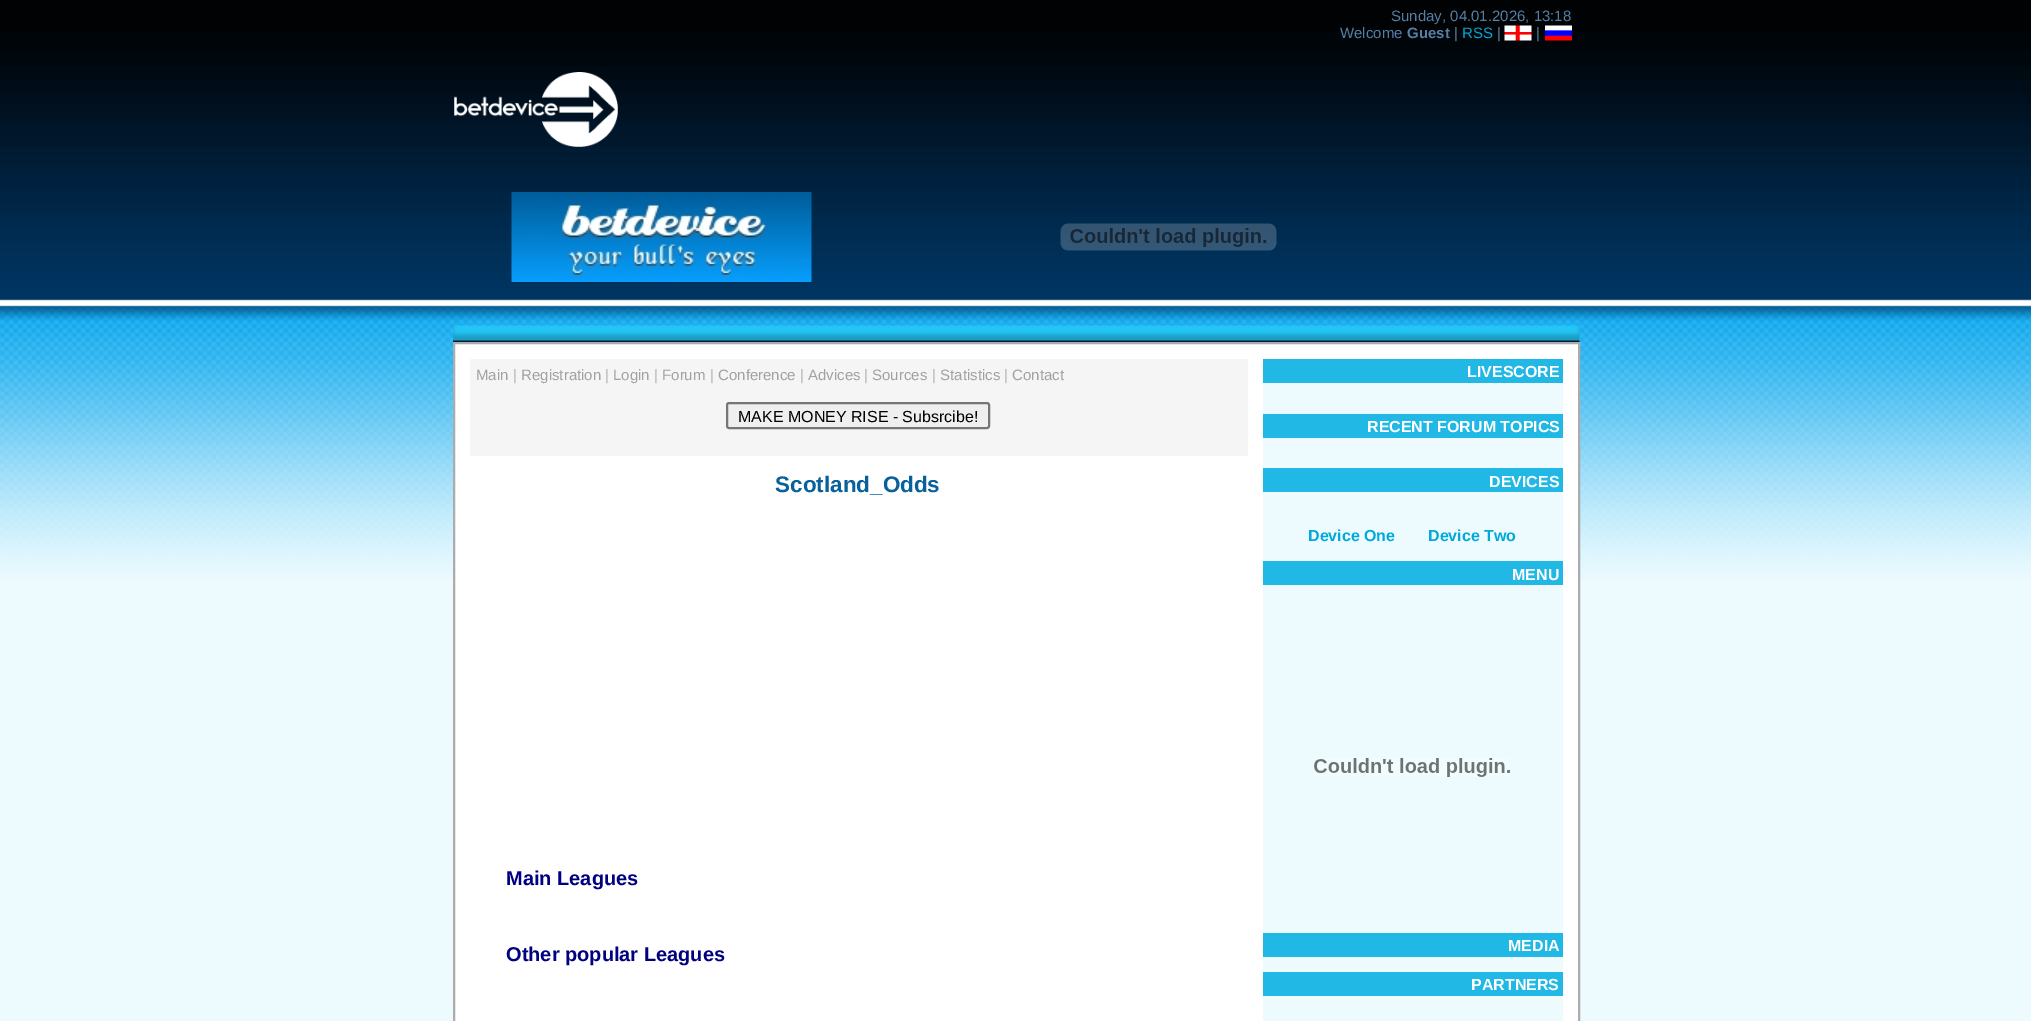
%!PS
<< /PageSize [2031 1021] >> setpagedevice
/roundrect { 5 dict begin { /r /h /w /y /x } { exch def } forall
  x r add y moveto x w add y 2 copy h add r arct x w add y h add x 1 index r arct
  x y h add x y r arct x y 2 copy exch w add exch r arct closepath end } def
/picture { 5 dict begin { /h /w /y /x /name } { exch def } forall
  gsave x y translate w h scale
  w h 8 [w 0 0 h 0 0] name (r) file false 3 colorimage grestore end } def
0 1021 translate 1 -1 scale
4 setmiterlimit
0.929 0.984 1 setrgbcolor
0 0 2031 1021 rectfill
(img1.rgb) 0 0 2031 579 picture
/LiberationSans-Regular [15 0 0 -15 0 0] selectfont
0.333 0.498 0.639 setrgbcolor
1391 21 moveto (Sunday, 04.01.2026, 13:18) show
1340 38 moveto (Welcome) show
/LiberationSans-Bold [15 0 0 -15 0 0] selectfont
1407 38 moveto (Guest) show
/LiberationSans-Regular [15 0 0 -15 0 0] selectfont
1454 38 moveto (|) show
0 0.663 0.859 setrgbcolor
1462 38 moveto (RSS) show
0.333 0.498 0.639 setrgbcolor
1497 38 moveto (|) show
(img2.rgb) 1504 25 28 16 picture
1536 38 moveto (|) show
(img3.rgb) 1545 25 27 16 picture
(img4.rgb) 454 72 164 75 picture
(img5.rgb) 511 192 301 90 picture
(img6.rgb) 1060 223 217 28 picture
(img7.rgb) 453 325 1127 17 picture
1 setgray
newpath 454 343 moveto 1579 343 lineto 1579 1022 lineto 454 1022 lineto closepath gsave fill grestore
0.675 setgray
2 setlinewidth
stroke
0.961 setgray
470 359 778 97 rectfill
0.631 setgray
476 380 moveto (Main) show
0.718 setgray
513 380 moveto (|) show
0.631 setgray
521 380 moveto (Registration) show
0.718 setgray
605 380 moveto (|) show
0.631 setgray
613 380 moveto (Login) show
0.718 setgray
654 380 moveto (|) show
0.631 setgray
662 380 moveto (Forum) show
0.718 setgray
710 380 moveto (|) show
0.631 setgray
718 380 moveto (Conference) show
0.718 setgray
800 380 moveto (|) show
0.631 setgray
808 380 moveto (Advices) show
0.718 setgray
864 380 moveto (|) show
0.631 setgray
872 380 moveto (Sources) show
0.718 setgray
932 380 moveto (|) show
0.631 setgray
940 380 moveto (Statistics) show
0.718 setgray
1004 380 moveto (|) show
0.631 setgray
1012 380 moveto (Contact) show
0.937 setgray
727 403 262 25 2 roundrect gsave fill grestore
0.463 setgray
stroke
/LiberationSans-Regular [16 0 0 -16 0 0] selectfont
0 setgray
738 422 moveto (MAKE MONEY RISE - Subsrcibe!) show
/LiberationSans-Bold [22.5 0 0 -22.5 0 0] selectfont
0.031 0.38 0.604 setrgbcolor
775 492 moveto (Scotland_Odds) show
/LiberationSans-Bold [20 0 0 -20 0 0] selectfont
0 0 0.502 setrgbcolor
506 885 moveto (Main Leagues) show
506 961 moveto (Other popular Leagues) show
0.929 0.984 1 setrgbcolor
1263 383 300 638 rectfill
0.129 0.722 0.898 setrgbcolor
1263 359 300 24 rectfill
/LiberationSans-Bold [16 0 0 -16 0 0] selectfont
1 setgray
1467 377 moveto (LIVESCORE) show
0.129 0.722 0.898 setrgbcolor
1263 414 300 24 rectfill
1 setgray
1367 432 moveto (RECENT FORUM TOPICS) show
0.129 0.722 0.898 setrgbcolor
1263 468 300 24 rectfill
1 setgray
1489 487 moveto (DEVICES) show
0 0.663 0.859 setrgbcolor
1308 541 moveto (Device One) show
1428 541 moveto (Device Two) show
0.129 0.722 0.898 setrgbcolor
1263 561 300 24 rectfill
1 setgray
1512 580 moveto (MENU) show
(img8.rgb) 1314 758 196 19 picture
0.129 0.722 0.898 setrgbcolor
1263 933 300 24 rectfill
1 setgray
1508 951 moveto (MEDIA) show
0.129 0.722 0.898 setrgbcolor
1263 972 300 24 rectfill
1 setgray
1471 990 moveto (PARTNERS) show
showpage
